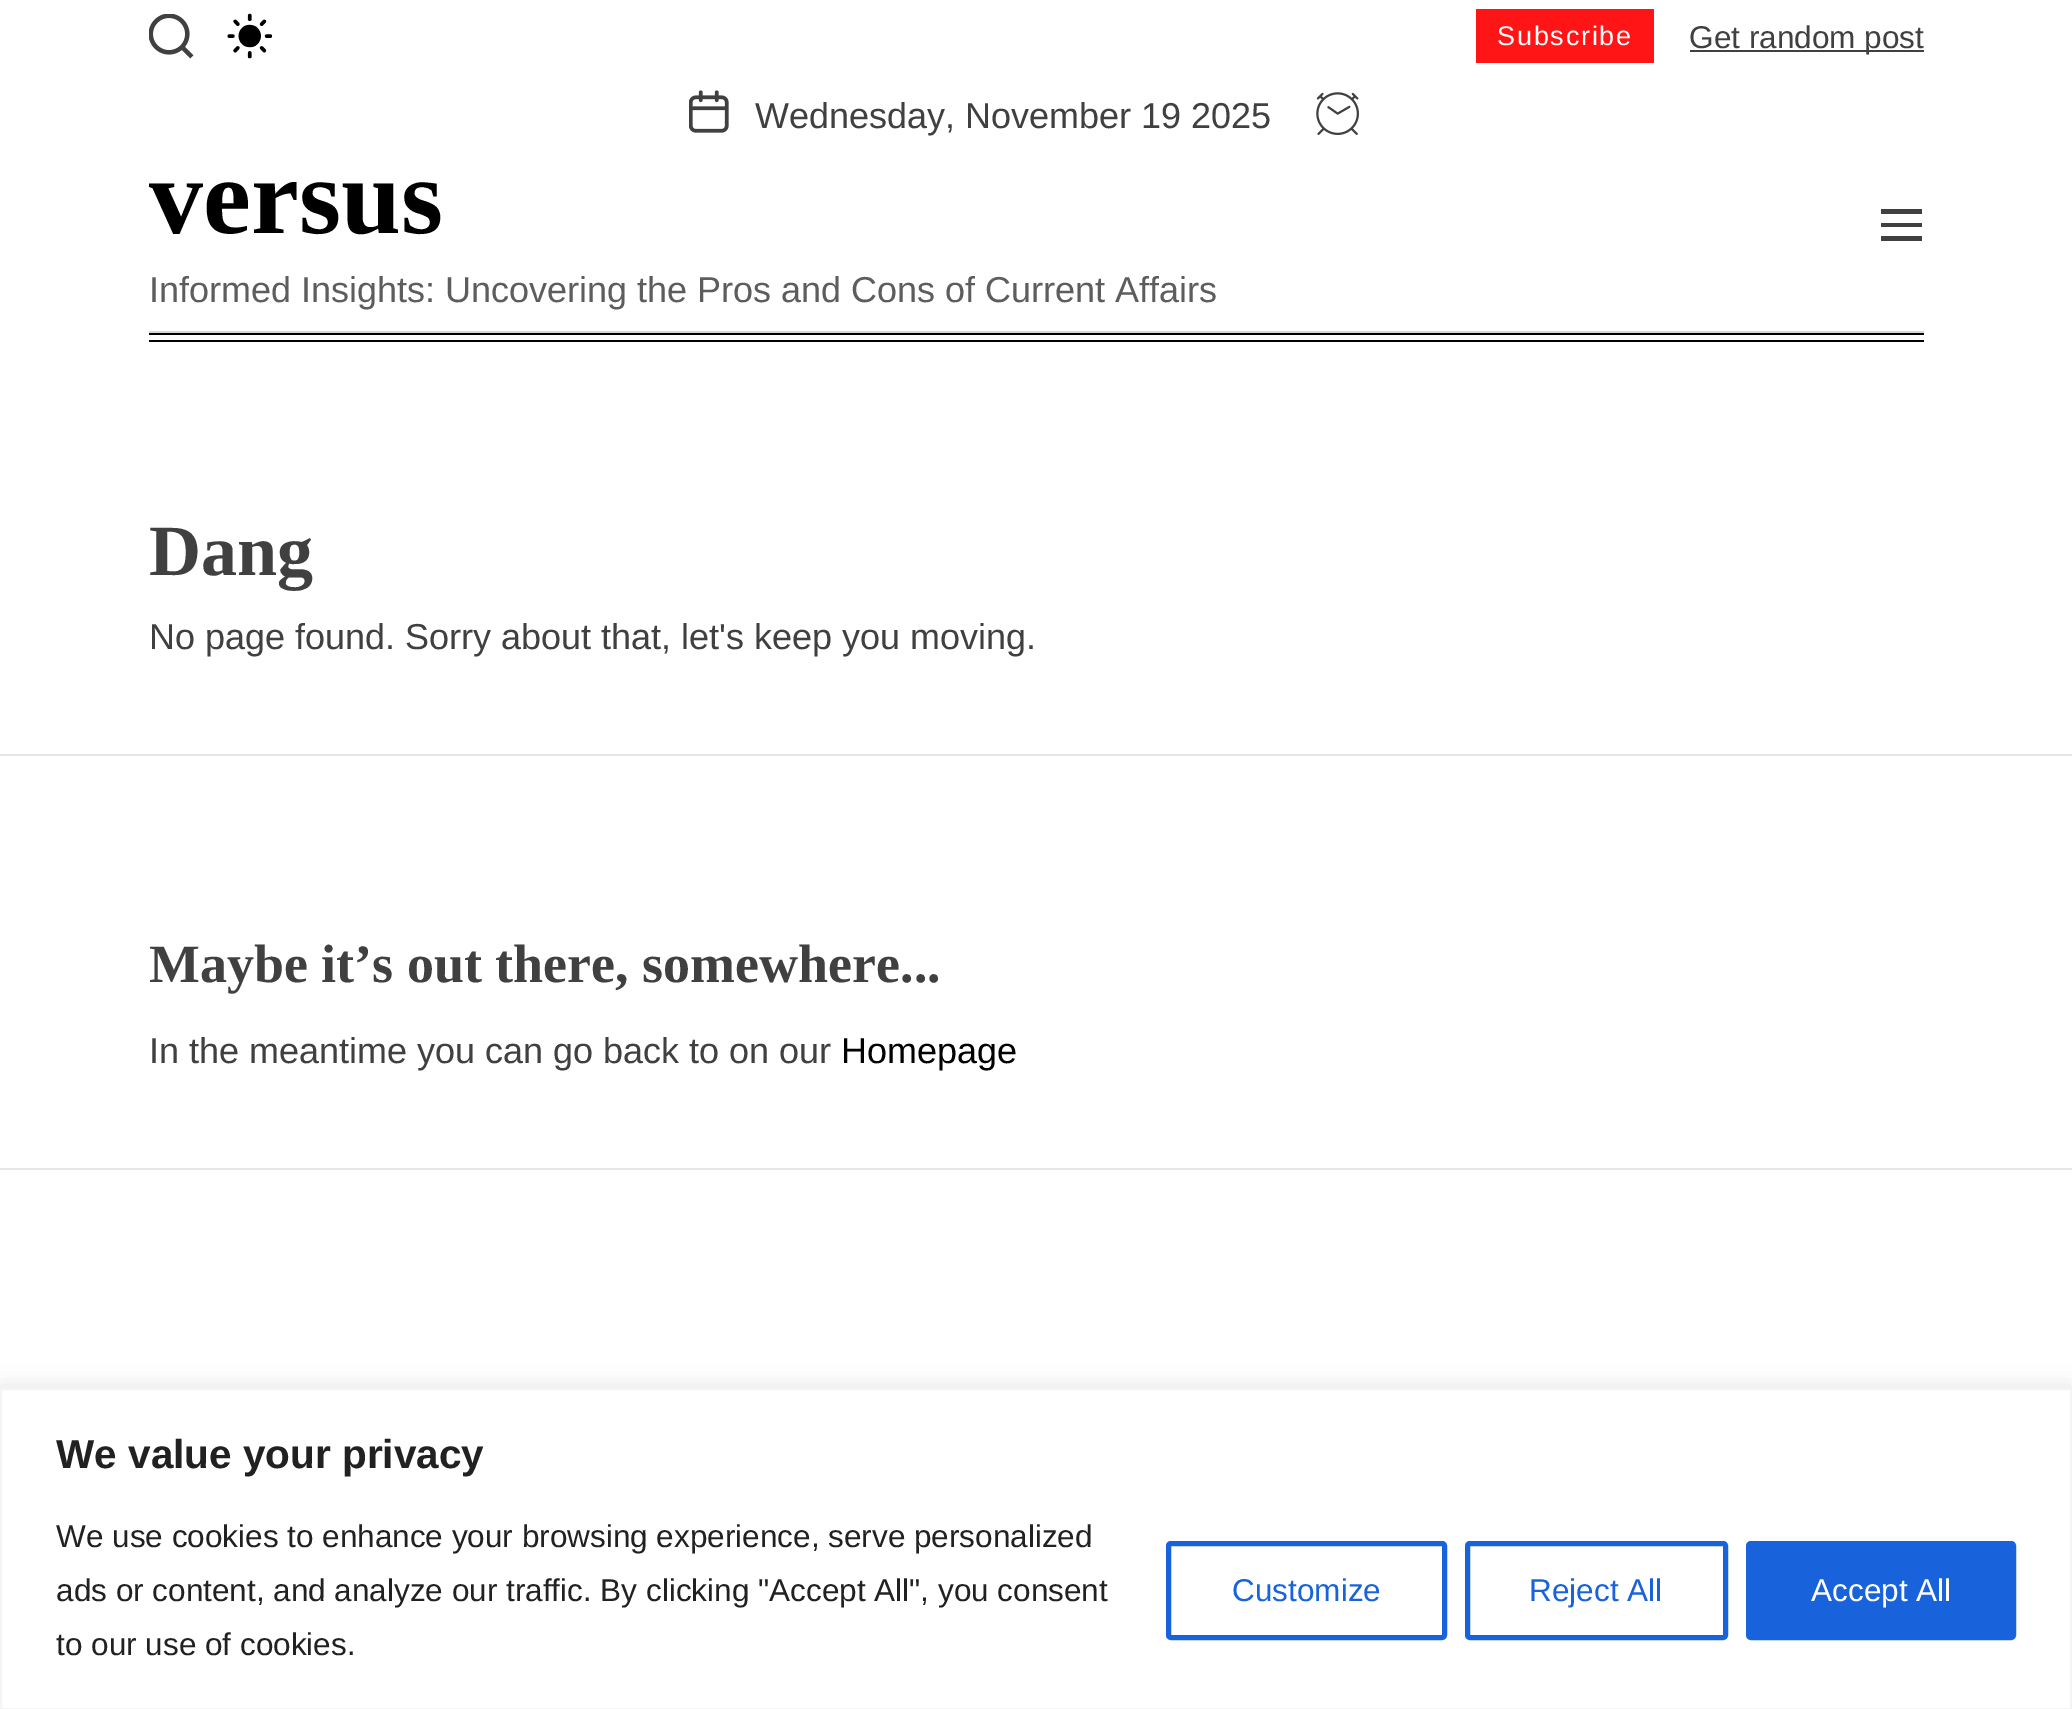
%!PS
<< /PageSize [2072 1709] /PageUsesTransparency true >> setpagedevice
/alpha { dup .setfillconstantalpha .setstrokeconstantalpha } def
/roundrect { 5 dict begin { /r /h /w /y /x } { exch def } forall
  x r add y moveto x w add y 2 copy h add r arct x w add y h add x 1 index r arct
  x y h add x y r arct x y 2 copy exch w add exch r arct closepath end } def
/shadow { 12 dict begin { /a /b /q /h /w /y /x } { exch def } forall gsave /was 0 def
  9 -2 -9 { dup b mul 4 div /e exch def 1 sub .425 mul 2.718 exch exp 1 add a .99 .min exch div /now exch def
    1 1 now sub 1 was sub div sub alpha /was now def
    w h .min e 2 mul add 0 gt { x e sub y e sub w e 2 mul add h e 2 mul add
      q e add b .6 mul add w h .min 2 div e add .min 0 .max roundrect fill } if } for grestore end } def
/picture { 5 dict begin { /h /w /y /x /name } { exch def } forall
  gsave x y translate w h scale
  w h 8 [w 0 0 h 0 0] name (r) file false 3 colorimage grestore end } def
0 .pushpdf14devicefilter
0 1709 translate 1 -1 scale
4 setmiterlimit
1 setgray
0 0 2072 1709 rectfill
(img1.rgb) 149 14 45 45 picture
(img2.rgb) 227 13 46 46 picture
1 0.082 0.082 setrgbcolor
1476 9 178 54 rectfill
/LiberationSans-Regular [27 0 0 -27 0 0] selectfont
1 setgray
1497 45 moveto 1.75 0 (Subscribe) ashow
0.251 setgray
1690 50 234 2 rectfill
/LiberationSans-Regular [31.5 0 0 -31.5 0 0] selectfont
1689 48 moveto (Get random post) show
(img3.rgb) 689 90 40 43 picture
/LiberationSans-Regular [36 0 0 -36 0 0] selectfont
755 128 moveto (Wednesday, November 19 2025) show
(img4.rgb) 1316 92 43 43 picture
/LiberationSerif-Bold [108 0 0 -108 0 0] selectfont
0 setgray
149 233 moveto (versus) show
/LiberationSans-Regular [36 0 0 -36 0 0] selectfont
0.365 setgray
149 302 moveto (Informed Insights: Uncovering the Pros and Cons of Current Affairs) show
0.251 setgray
newpath 1881 209 moveto 1881 214 lineto 1922 214 lineto 1922 209 lineto closepath 1881 227 moveto 1922 227 lineto 1922 223 lineto 1881 223 lineto closepath 1881 241 moveto 1922 241 lineto 1922 236 lineto 1881 236 lineto closepath fill
0.851 setgray
149 331 1775 2 rectfill
0 setgray
149 333 1775 2 rectfill
149 340 1775 2 rectfill
0.902 setgray
0 754 2072 2 rectfill
/LiberationSerif-Bold [72 0 0 -72 0 0] selectfont
0.251 setgray
149 575 moveto (Dang) show
/LiberationSans-Regular [36 0 0 -36 0 0] selectfont
149 649 moveto (No page found. Sorry about that, let's keep you moving.) show
0.902 setgray
0 1168 2072 2 rectfill
/LiberationSerif-Bold [54 0 0 -54 0 0] selectfont
0.251 setgray
149 982 moveto (Maybe it’s out there, somewhere...) show
/LiberationSans-Regular [36 0 0 -36 0 0] selectfont
149 1063 moveto (In the meantime you can go back to on our) show
0 setgray
841 1063 moveto (Homepage) show
0.675 0.671 0.671 setrgbcolor
0 1386 2072 322 0 11 0.3 shadow
1 setgray
newpath 1 1389 moveto 2071 1389 lineto 2071 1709 lineto 1 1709 lineto closepath gsave fill grestore
0.957 setgray
2 setlinewidth
stroke
/LiberationSans-Bold [40.5 0 0 -40.5 0 0] selectfont
0.129 setgray
56 1468 moveto (We value your privacy) show
/LiberationSans-Regular [31.5 0 0 -31.5 0 0] selectfont
56 1547 moveto (We use cookies to enhance your browsing experience, serve personalized) show
56 1601 moveto (ads or content, and analyze our traffic. By clicking "Accept All", you consent) show
56 1655 moveto (to our use of cookies.) show
0.094 0.388 0.863 setrgbcolor
5 setlinewidth
1168.5 1543.5 276 94 2.5 roundrect stroke
1232 1601 moveto (Customize) show
1467.5 1543.5 258 94 2.5 roundrect stroke
1529 1601 moveto (Reject All) show
1748.5 1543.5 265 94 2.5 roundrect gsave fill grestore
stroke
1 setgray
1811 1601 moveto (Accept All) show
.poppdf14devicefilter showpage
